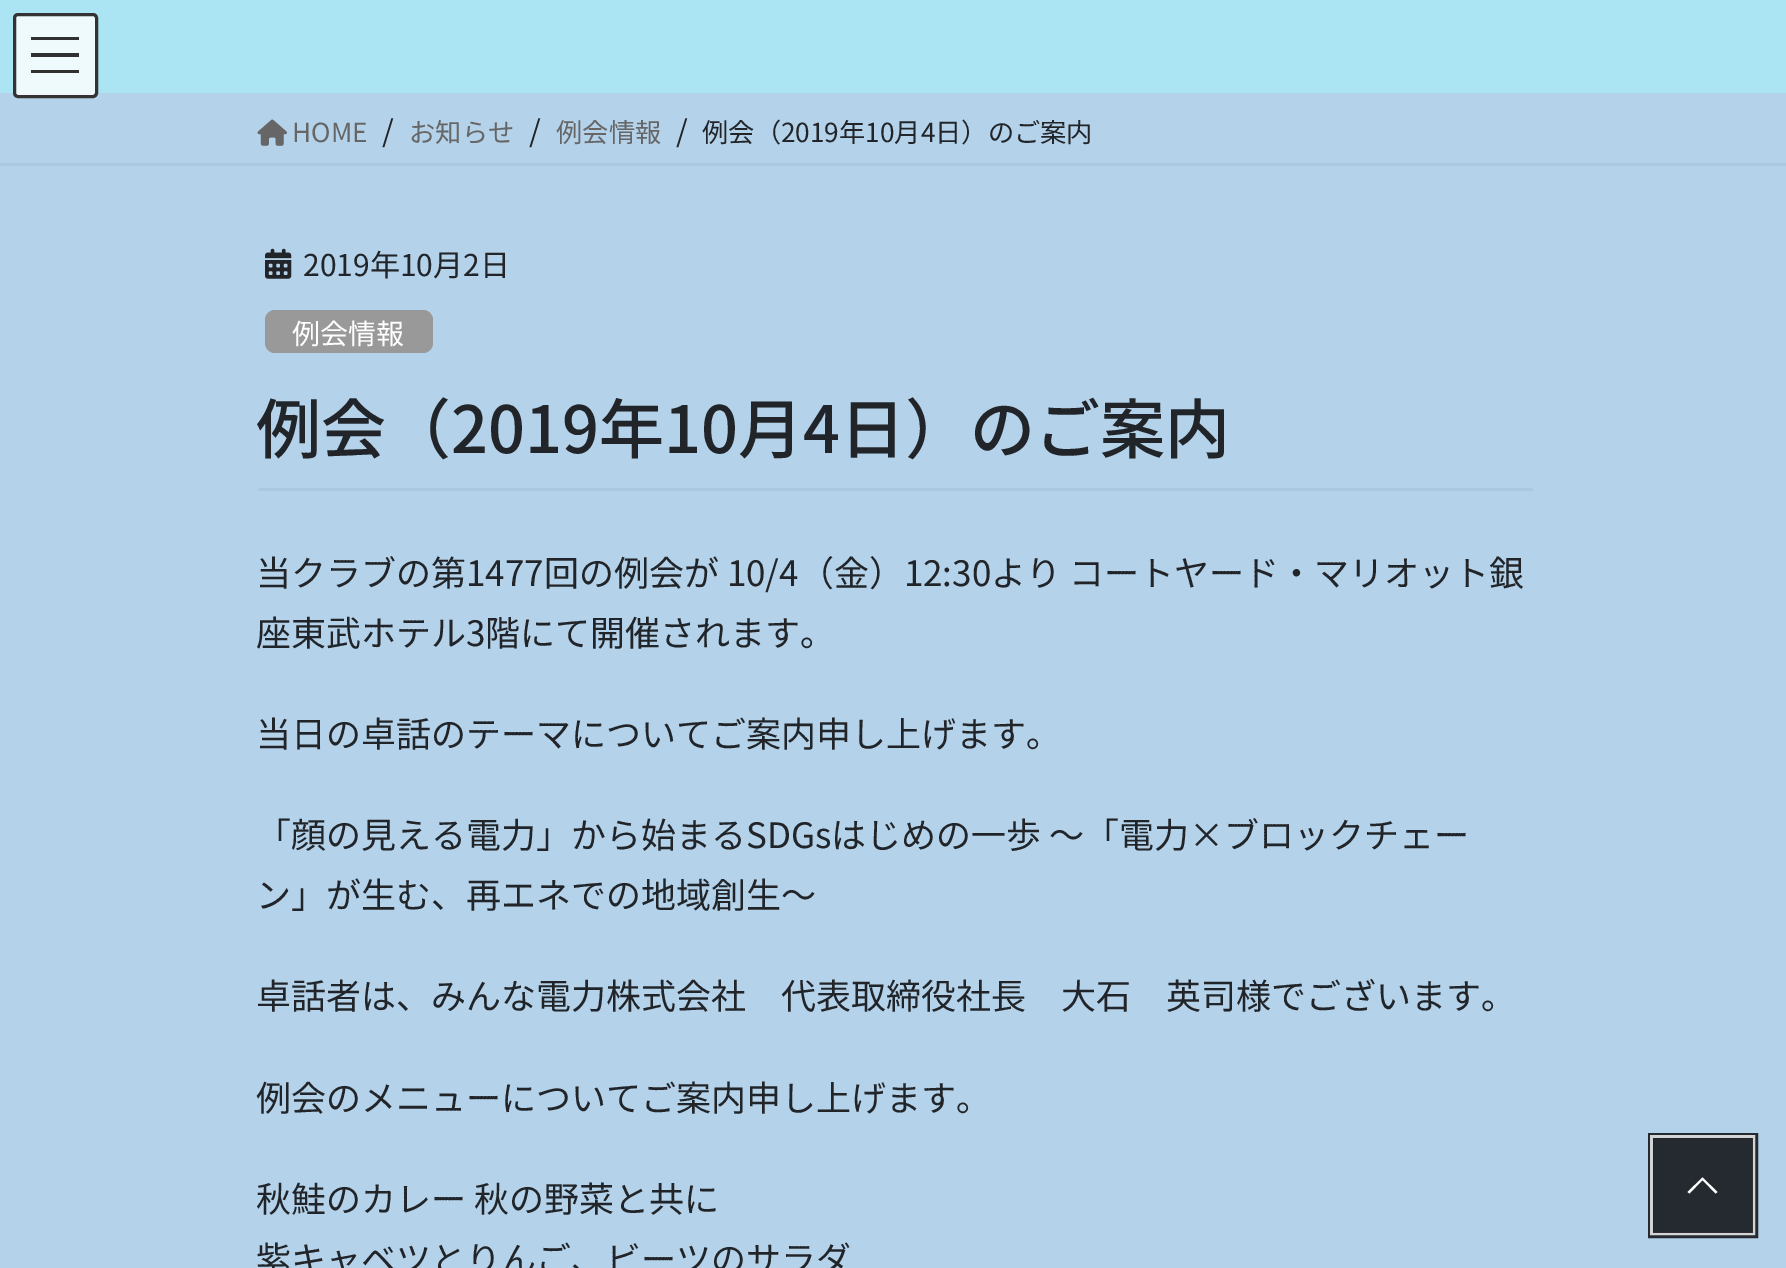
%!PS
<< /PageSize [1786 1268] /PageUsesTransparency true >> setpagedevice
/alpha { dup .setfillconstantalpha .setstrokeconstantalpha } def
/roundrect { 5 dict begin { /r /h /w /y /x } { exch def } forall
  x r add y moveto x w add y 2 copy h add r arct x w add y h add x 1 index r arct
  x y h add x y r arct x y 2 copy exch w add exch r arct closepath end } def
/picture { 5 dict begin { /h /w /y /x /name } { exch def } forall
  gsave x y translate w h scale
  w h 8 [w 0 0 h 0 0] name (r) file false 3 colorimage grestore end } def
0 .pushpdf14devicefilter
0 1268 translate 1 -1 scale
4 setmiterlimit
0.706 0.824 0.918 setrgbcolor
0 0 1786 1268 rectfill
0.671 0.894 0.949 setrgbcolor
0 0 1786 93 rectfill
0.8 alpha
1 setgray
13 13 85 85 5 roundrect fill
1 alpha
0.188 0.196 0.196 setrgbcolor
31 37 48 3 rectfill
31 53 48 4 rectfill
31 70 48 3 rectfill
0.2 setgray
3 setlinewidth
14.5 14.5 82 82 3.5 roundrect stroke
0.671 0.784 0.871 setrgbcolor
0 163 1786 3 rectfill
(img1.rgb) 257 119 30 27 picture
/NotoSansJP-Regular [26.25 0 0 -26.25 0 0] selectfont
0.4 setgray
292 142 moveto (HOME) show
/NotoSansJP-Regular [30 0 0 -30 0 0] selectfont
0.129 0.145 0.161 setrgbcolor
382 142 moveto (/) show
/NotoSansJP-Regular [26.25 0 0 -26.25 0 0] selectfont
0.4 setgray
409 142 moveto (お知らせ) show
/NotoSansJP-Regular [30 0 0 -30 0 0] selectfont
0.129 0.145 0.161 setrgbcolor
529 142 moveto (/) show
/NotoSansJP-Regular [26.25 0 0 -26.25 0 0] selectfont
0.4 setgray
556 142 moveto (例会情報) show
/NotoSansJP-Regular [30 0 0 -30 0 0] selectfont
0.129 0.145 0.161 setrgbcolor
676 142 moveto (/) show
/NotoSansJP-Regular [26.25 0 0 -26.25 0 0] selectfont
702 142 moveto (例会（2019年10月4日）のご案内) show
0.671 0.784 0.871 setrgbcolor
258 488 1275 3 rectfill
(img2.rgb) 265 248 27 31 picture
/NotoSansJP-Regular [30 0 0 -30 0 0] selectfont
0.129 0.145 0.161 setrgbcolor
303 276 moveto (2019年10月2日) show
0.6 setgray
265 310 168 43 10 roundrect fill
/NotoSansJP-Regular [28 0 0 -28 0 0] selectfont
1 setgray
292 344 moveto (例会情報) show
/NotoSansJP-Medium [65 0 0 -65 0 0] selectfont
0.129 0.145 0.161 setrgbcolor
256 453 moveto (例会（2019年10月4日）のご案内) show
/NotoSansJP-Regular [35 0 0 -35 0 0] selectfont
256 586 moveto (当クラブの第1477回の例会が 10/4（金）12:30より コートヤード・マリオット銀) show
256 646 moveto (座東武ホテル3階にて開催されます。) show
256 747 moveto (当日の卓話のテーマについてご案内申し上げます。) show
256 848 moveto (「顔の見える電力」から始まるSDGsはじめの一歩 〜「電力×ブロックチェー) show
256 908 moveto (ン」が生む、再エネでの地域創生〜) show
256 1009 moveto (卓話者は、みんな電力株式会社　代表取締役社長　大石　英司様でございます。) show
256 1111 moveto (例会のメニューについてご案内申し上げます。) show
256 1212 moveto (秋鮭のカレー 秋の野菜と共に) show
256 1272 moveto (紫キャベツとりんご、ビーツのサラダ) show
0.141 0.165 0.184 setrgbcolor
5 setlinewidth
1650.5 1135.5 105 100 rectstroke
0.8 alpha
1 setgray
3 setlinewidth
1651.5 1136.5 102 97 rectstroke
0 setgray
1653 1138 100 95 rectfill
1 alpha
1 setgray
newpath 1717.5 1192 moveto 1715.5 1193.5 lineto 1702.5 1180 lineto 1689.5 1193.5 lineto 1687.5 1192 lineto 1702.5 1177.5 lineto closepath fill
.poppdf14devicefilter showpage
